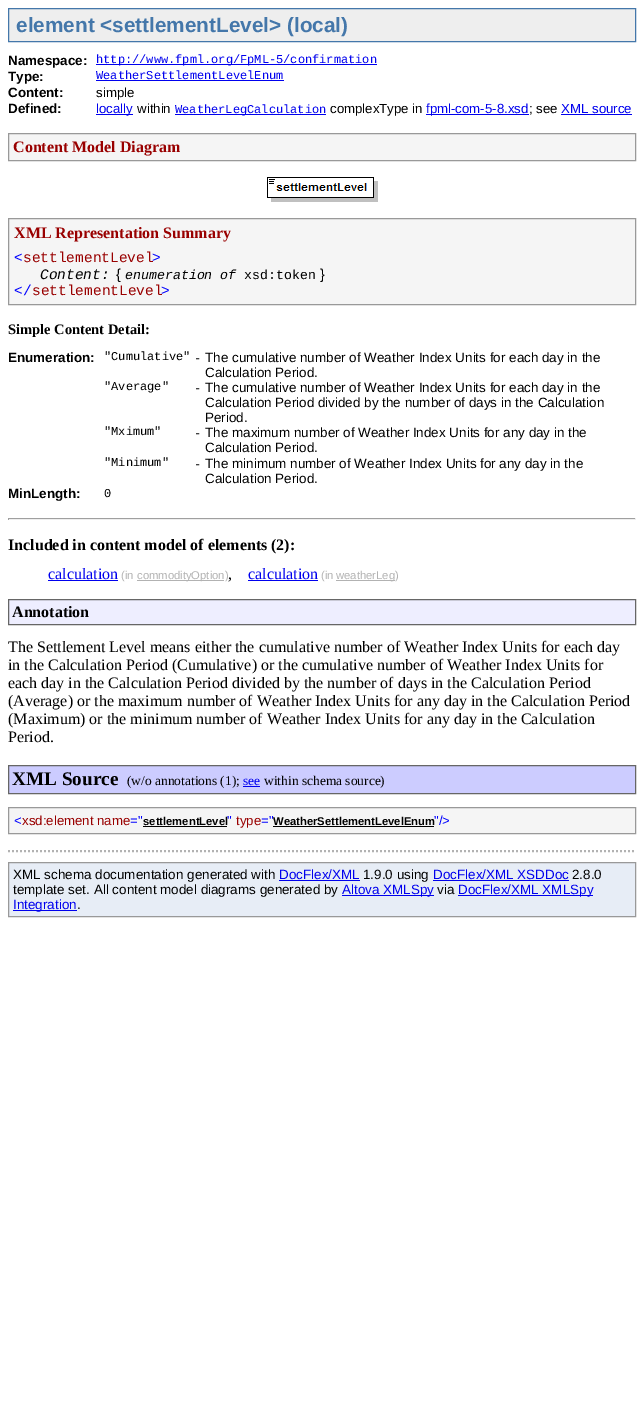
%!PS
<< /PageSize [644 1420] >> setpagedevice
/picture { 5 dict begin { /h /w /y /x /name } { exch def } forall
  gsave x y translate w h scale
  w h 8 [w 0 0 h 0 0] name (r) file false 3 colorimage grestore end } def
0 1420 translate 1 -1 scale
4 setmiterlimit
1 setgray
0 0 644 1420 rectfill
0.933 setgray
newpath 8.5 8.5 moveto 635.5 8.5 lineto 635.5 41.5 lineto 8.5 41.5 lineto closepath gsave fill grestore
0.267 0.467 0.667 setrgbcolor
stroke
/LiberationSans-Bold [20.75 0 0 -20.75 0 0] selectfont
16 32 moveto (element <settlementLevel> \(local\)) show
/LiberationSans-Bold [13.45 0 0 -13.45 0 0] selectfont
0 setgray
8 65 moveto (Namespace:) show
0 0 0.933 setrgbcolor
96 64 281 1 rectfill
/LiberationMono-Regular [12 0 0 -12 0 0] selectfont
96 63 moveto (http://www.fpml.org/FpML-5/confirmation) show
/LiberationSans-Bold [13.45 0 0 -13.45 0 0] selectfont
0 setgray
8 81 moveto (Type:) show
/LiberationMono-Regular [12 0 0 -12 0 0] selectfont
0 0 0.933 setrgbcolor
96 79 moveto (WeatherSettlementLevelEnum) show
96 80 188 1 rectfill
/LiberationSans-Bold [13.45 0 0 -13.45 0 0] selectfont
0 setgray
8 97 moveto (Content:) show
/LiberationSans-Regular [13.25 0 0 -13.25 0 0] selectfont
96 97 moveto (simple) show
/LiberationSans-Bold [13.45 0 0 -13.45 0 0] selectfont
8 113 moveto (Defined:) show
0 0 0.933 setrgbcolor
96 114 37 1 rectfill
/LiberationSans-Regular [13.25 0 0 -13.25 0 0] selectfont
96 113 moveto (locally) show
0 setgray
137 113 moveto (within) show
0 0 0.933 setrgbcolor
175 114 151 1 rectfill
/LiberationMono-Regular [12 0 0 -12 0 0] selectfont
175 113 moveto (WeatherLegCalculation) show
/LiberationSans-Regular [13.25 0 0 -13.25 0 0] selectfont
0 setgray
330 113 moveto (complexType in) show
0 0 0.933 setrgbcolor
426 114 103 1 rectfill
426 113 moveto (fpml-com-5-8.xsd) show
0 setgray
529 113 moveto (; see) show
0 0 0.933 setrgbcolor
561 113 moveto (XML source) show
561 114 71 1 rectfill
0.961 setgray
newpath 8.5 133.5 moveto 635.5 133.5 lineto 635.5 160.5 lineto 8.5 160.5 lineto closepath gsave fill grestore
0.6 setgray
stroke
/LiberationSerif-Bold [16 0 0 -16 0 0] selectfont
0.6 0 0 setrgbcolor
13 152 moveto (Content Model Diagram) show
(img1.rgb) 267 177 111 25 picture
0.961 setgray
newpath 8.5 218.5 moveto 635.5 218.5 lineto 635.5 304.5 lineto 8.5 304.5 lineto closepath gsave fill grestore
0.6 setgray
stroke
0.6 0 0 setrgbcolor
14 238 moveto (XML Representation Summary) show
/LiberationMono-Regular [14.5 0 0 -14.5 0 0] selectfont
0 0 1 setrgbcolor
14 262 moveto (<) show
0.6 0 0 setrgbcolor
23 262 moveto (settlementLevel) show
0 0 1 setrgbcolor
152 262 moveto (>) show
/LiberationMono-Italic [14.5 0 0 -14.5 0 0] selectfont
0 setgray
40 279 moveto (Content:) show
/LiberationSans-Regular [14.5 0 0 -14.5 0 0] selectfont
116 279 moveto ({) show
/LiberationMono-Italic [13.25 0 0 -13.25 0 0] selectfont
125 279 moveto (enumeration of) show
/LiberationMono-Regular [13.25 0 0 -13.25 0 0] selectfont
244 279 moveto (xsd:token) show
/LiberationSans-Regular [14.5 0 0 -14.5 0 0] selectfont
320 279 moveto (}) show
/LiberationMono-Regular [14.5 0 0 -14.5 0 0] selectfont
0 0 1 setrgbcolor
14 295 moveto (</) show
0.6 0 0 setrgbcolor
32 295 moveto (settlementLevel) show
0 0 1 setrgbcolor
161 295 moveto (>) show
/LiberationSerif-Bold [14.5 0 0 -14.5 0 0] selectfont
0 setgray
8 334 moveto (Simple Content Detail:) show
/LiberationSans-Bold [13.45 0 0 -13.45 0 0] selectfont
8 362 moveto (Enumeration:) show
/LiberationMono-Regular [12 0 0 -12 0 0] selectfont
104 360 moveto ("Cumulative") show
194 362 moveto (-) show
/LiberationSans-Regular [13.45 0 0 -13.45 0 0] selectfont
205 362 moveto (The cumulative number of Weather Index Units for each day in the) show
205 377 moveto (Calculation Period.) show
/LiberationMono-Regular [12 0 0 -12 0 0] selectfont
104 390 moveto ("Average") show
194 392 moveto (-) show
/LiberationSans-Regular [13.45 0 0 -13.45 0 0] selectfont
205 392 moveto (The cumulative number of Weather Index Units for each day in the) show
205 407 moveto (Calculation Period divided by the number of days in the Calculation) show
205 422 moveto (Period.) show
/LiberationMono-Regular [12 0 0 -12 0 0] selectfont
104 435 moveto ("Mximum") show
194 437 moveto (-) show
/LiberationSans-Regular [13.45 0 0 -13.45 0 0] selectfont
205 437 moveto (The maximum number of Weather Index Units for any day in the) show
205 452 moveto (Calculation Period.) show
/LiberationMono-Regular [12 0 0 -12 0 0] selectfont
104 466 moveto ("Minimum") show
194 468 moveto (-) show
/LiberationSans-Regular [13.45 0 0 -13.45 0 0] selectfont
205 468 moveto (The minimum number of Weather Index Units for any day in the) show
205 483 moveto (Calculation Period.) show
/LiberationSans-Bold [13.45 0 0 -13.45 0 0] selectfont
8 498 moveto (MinLength:) show
/LiberationMono-Regular [12 0 0 -12 0 0] selectfont
104 497 moveto (0) show
0.624 setgray
8 518 628 1 rectfill
0.933 setgray
635 518 1 2 rectfill
8 519 628 1 rectfill
0.624 setgray
8 518 1 2 rectfill
/LiberationSerif-Bold [16 0 0 -16 0 0] selectfont
0 setgray
8 550 moveto (Included in content model of elements \(2\):) show
/LiberationSerif-Regular [16 0 0 -16 0 0] selectfont
0 0 0.933 setrgbcolor
48 579 moveto (calculation) show
48 580 70 1 rectfill
/LiberationSans-Regular [11.25 0 0 -11.25 0 0] selectfont
0.698 setgray
121 579 moveto (\(in) show
137 580 87 1 rectfill
137 579 moveto (commodityOption\)) show
/LiberationSerif-Regular [16 0 0 -16 0 0] selectfont
0 setgray
228 579 moveto (,) show
0 0 0.933 setrgbcolor
248 579 moveto (calculation) show
248 580 70 1 rectfill
/LiberationSans-Regular [11.25 0 0 -11.25 0 0] selectfont
0.698 setgray
321 579 moveto (\(in) show
336 580 59 1 rectfill
336 579 moveto (weatherLeg\)) show
0.933 0.933 1 setrgbcolor
newpath 8.5 599.5 moveto 635.5 599.5 lineto 635.5 624.5 lineto 8.5 624.5 lineto closepath gsave fill grestore
0.4 setgray
stroke
/LiberationSerif-Bold [16 0 0 -16 0 0] selectfont
0 setgray
12 617 moveto (Annotation) show
/LiberationSerif-Regular [16 0 0 -16 0 0] selectfont
8 652 moveto (The Settlement Level means either the cumulative number of Weather Index Units for each day) show
8 670 moveto (in the Calculation Period \(Cumulative\) or the cumulative number of Weather Index Units for) show
8 688 moveto (each day in the Calculation Period divided by the number of days in the Calculation Period) show
8 706 moveto (\(Average\) or the maximum number of Weather Index Units for any day in the Calculation Period) show
8 724 moveto (\(Maximum\) or the minimum number of Weather Index Units for any day in the Calculation) show
8 742 moveto (Period.) show
0.8 0.8 1 setrgbcolor
newpath 8.5 765.5 moveto 635.5 765.5 lineto 635.5 793.5 lineto 8.5 793.5 lineto closepath gsave fill grestore
0.4 setgray
stroke
/LiberationSerif-Bold [19.25 0 0 -19.25 0 0] selectfont
0 setgray
12 785 moveto (XML Source) show
/LiberationSerif-Regular [13.45 0 0 -13.45 0 0] selectfont
127 785 moveto (\(w/o annotations \(1\);) show
0 0 0.933 setrgbcolor
243 785 moveto (see) show
243 786 17 1 rectfill
0 setgray
264 785 moveto (within schema source\)) show
0.961 setgray
newpath 8.5 807.5 moveto 635.5 807.5 lineto 635.5 833.5 lineto 8.5 833.5 lineto closepath gsave fill grestore
0.6 setgray
stroke
/LiberationSans-Regular [13.25 0 0 -13.25 0 0] selectfont
0 0 1 setrgbcolor
14 825 moveto (<) show
0.6 0 0 setrgbcolor
22 825 moveto (xsd:element name) show
0 0 1 setrgbcolor
130 825 moveto (=") show
/LiberationSans-Bold [11.25 0 0 -11.25 0 0] selectfont
0 setgray
143 825 moveto (settlementLevel) show
143 826 84 1 rectfill
/LiberationSans-Regular [13.25 0 0 -13.25 0 0] selectfont
0 0 1 setrgbcolor
227 825 moveto (") show
0.6 0 0 setrgbcolor
236 825 moveto (type) show
0 0 1 setrgbcolor
261 825 moveto (=") show
/LiberationSans-Bold [11.25 0 0 -11.25 0 0] selectfont
0 setgray
273 825 moveto (WeatherSettlementLevelEnum) show
273 826 161 1 rectfill
/LiberationSans-Regular [13.25 0 0 -13.25 0 0] selectfont
0 0 1 setrgbcolor
434 825 moveto ("/>) show
0.698 setgray
2 setlinewidth
[2 2] 0 setdash
newpath 8 851 moveto 636 851 lineto stroke
0.906 0.929 0.965 setrgbcolor
newpath 8.5 862.5 moveto 635.5 862.5 lineto 635.5 916.5 lineto 8.5 916.5 lineto closepath gsave fill grestore
0.6 setgray
1 setlinewidth
[] 0 setdash
stroke
/LiberationSans-Regular [13.45 0 0 -13.45 0 0] selectfont
0 setgray
13 879 moveto (XML schema documentation generated with) show
0 0 0.933 setrgbcolor
279 879 moveto (DocFlex/XML) show
279 880 81 1 rectfill
0 setgray
363 879 moveto (1.9.0 using) show
0 0 0.933 setrgbcolor
433 879 moveto (DocFlex/XML XSDDoc) show
433 880 136 1 rectfill
0 setgray
572 879 moveto (2.8.0) show
13 894 moveto (template set. All content model diagrams generated by) show
0 0 0.933 setrgbcolor
342 895 92 1 rectfill
342 894 moveto (Altova XMLSpy) show
0 setgray
437 894 moveto (via) show
0 0 0.933 setrgbcolor
458 895 135 1 rectfill
458 894 moveto (DocFlex/XML XMLSpy) show
13 910 64 1 rectfill
13 909 moveto (Integration) show
0 setgray
77 909 moveto (.) show
showpage
